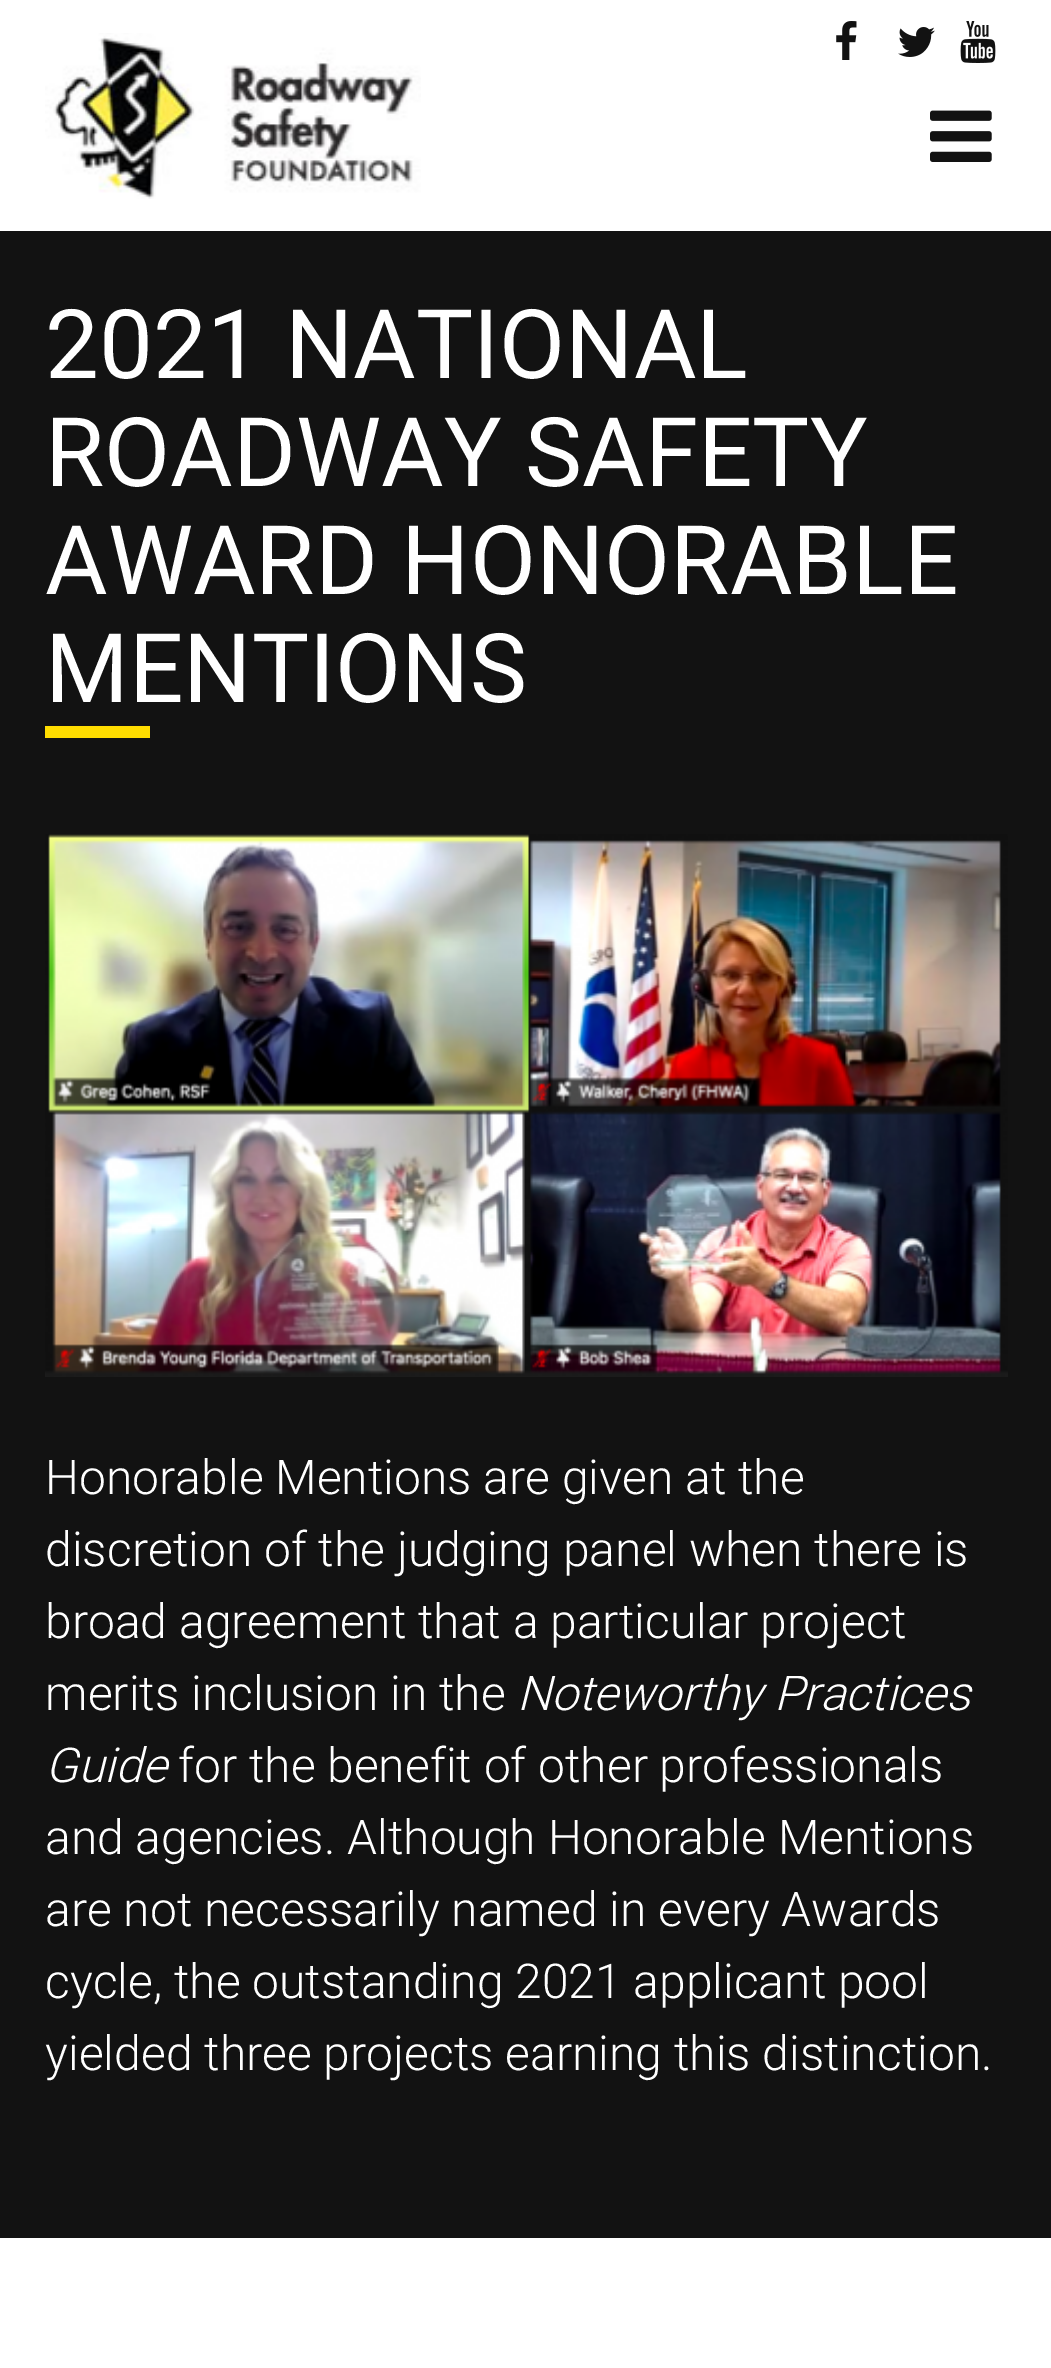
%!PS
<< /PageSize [1051 2368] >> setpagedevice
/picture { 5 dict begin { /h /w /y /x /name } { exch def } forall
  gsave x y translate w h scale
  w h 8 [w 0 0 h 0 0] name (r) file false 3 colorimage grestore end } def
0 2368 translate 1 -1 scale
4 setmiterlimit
1 setgray
0 0 1051 2368 rectfill
(img1.rgb) 45 33 376 166 picture
(img2.rgb) 836 21 21 39 picture
(img3.rgb) 898 27 37 30 picture
(img4.rgb) 960 21 36 42 picture
(img5.rgb) 930 110 62 52 picture
0.071 setgray
0 231 1051 2007 rectfill
/Roboto-Regular [96 0 0 -96 0 0] selectfont
1 setgray
45 378 moveto (2021 NATIONAL) show
45 486 moveto (ROADWAY SAFETY) show
45 594 moveto (AWARD HONORABLE) show
45 702 moveto (MENTIONS) show
1 0.867 0 setrgbcolor
45 726 105 12 rectfill
(img6.rgb) 45 834 963 543 picture
/Roboto-Light [48 0 0 -48 0 0] selectfont
1 setgray
45 1494 moveto (Honorable Mentions are given at the) show
45 1566 moveto (discretion of the judging panel when there is) show
45 1638 moveto (broad agreement that a particular project) show
45 1710 moveto (merits inclusion in the) show
/Roboto-LightItalic [48 0 0 -48 0 0] selectfont
517 1710 moveto (Noteworthy Practices) show
45 1782 moveto (Guide) show
/Roboto-Light [48 0 0 -48 0 0] selectfont
178 1782 moveto (for the benefit of other professionals) show
45 1854 moveto (and agencies. Although Honorable Mentions) show
45 1926 moveto (are not necessarily named in every Awards) show
45 1998 moveto (cycle, the outstanding 2021 applicant pool) show
45 2070 moveto (yielded three projects earning this distinction.) show
showpage
